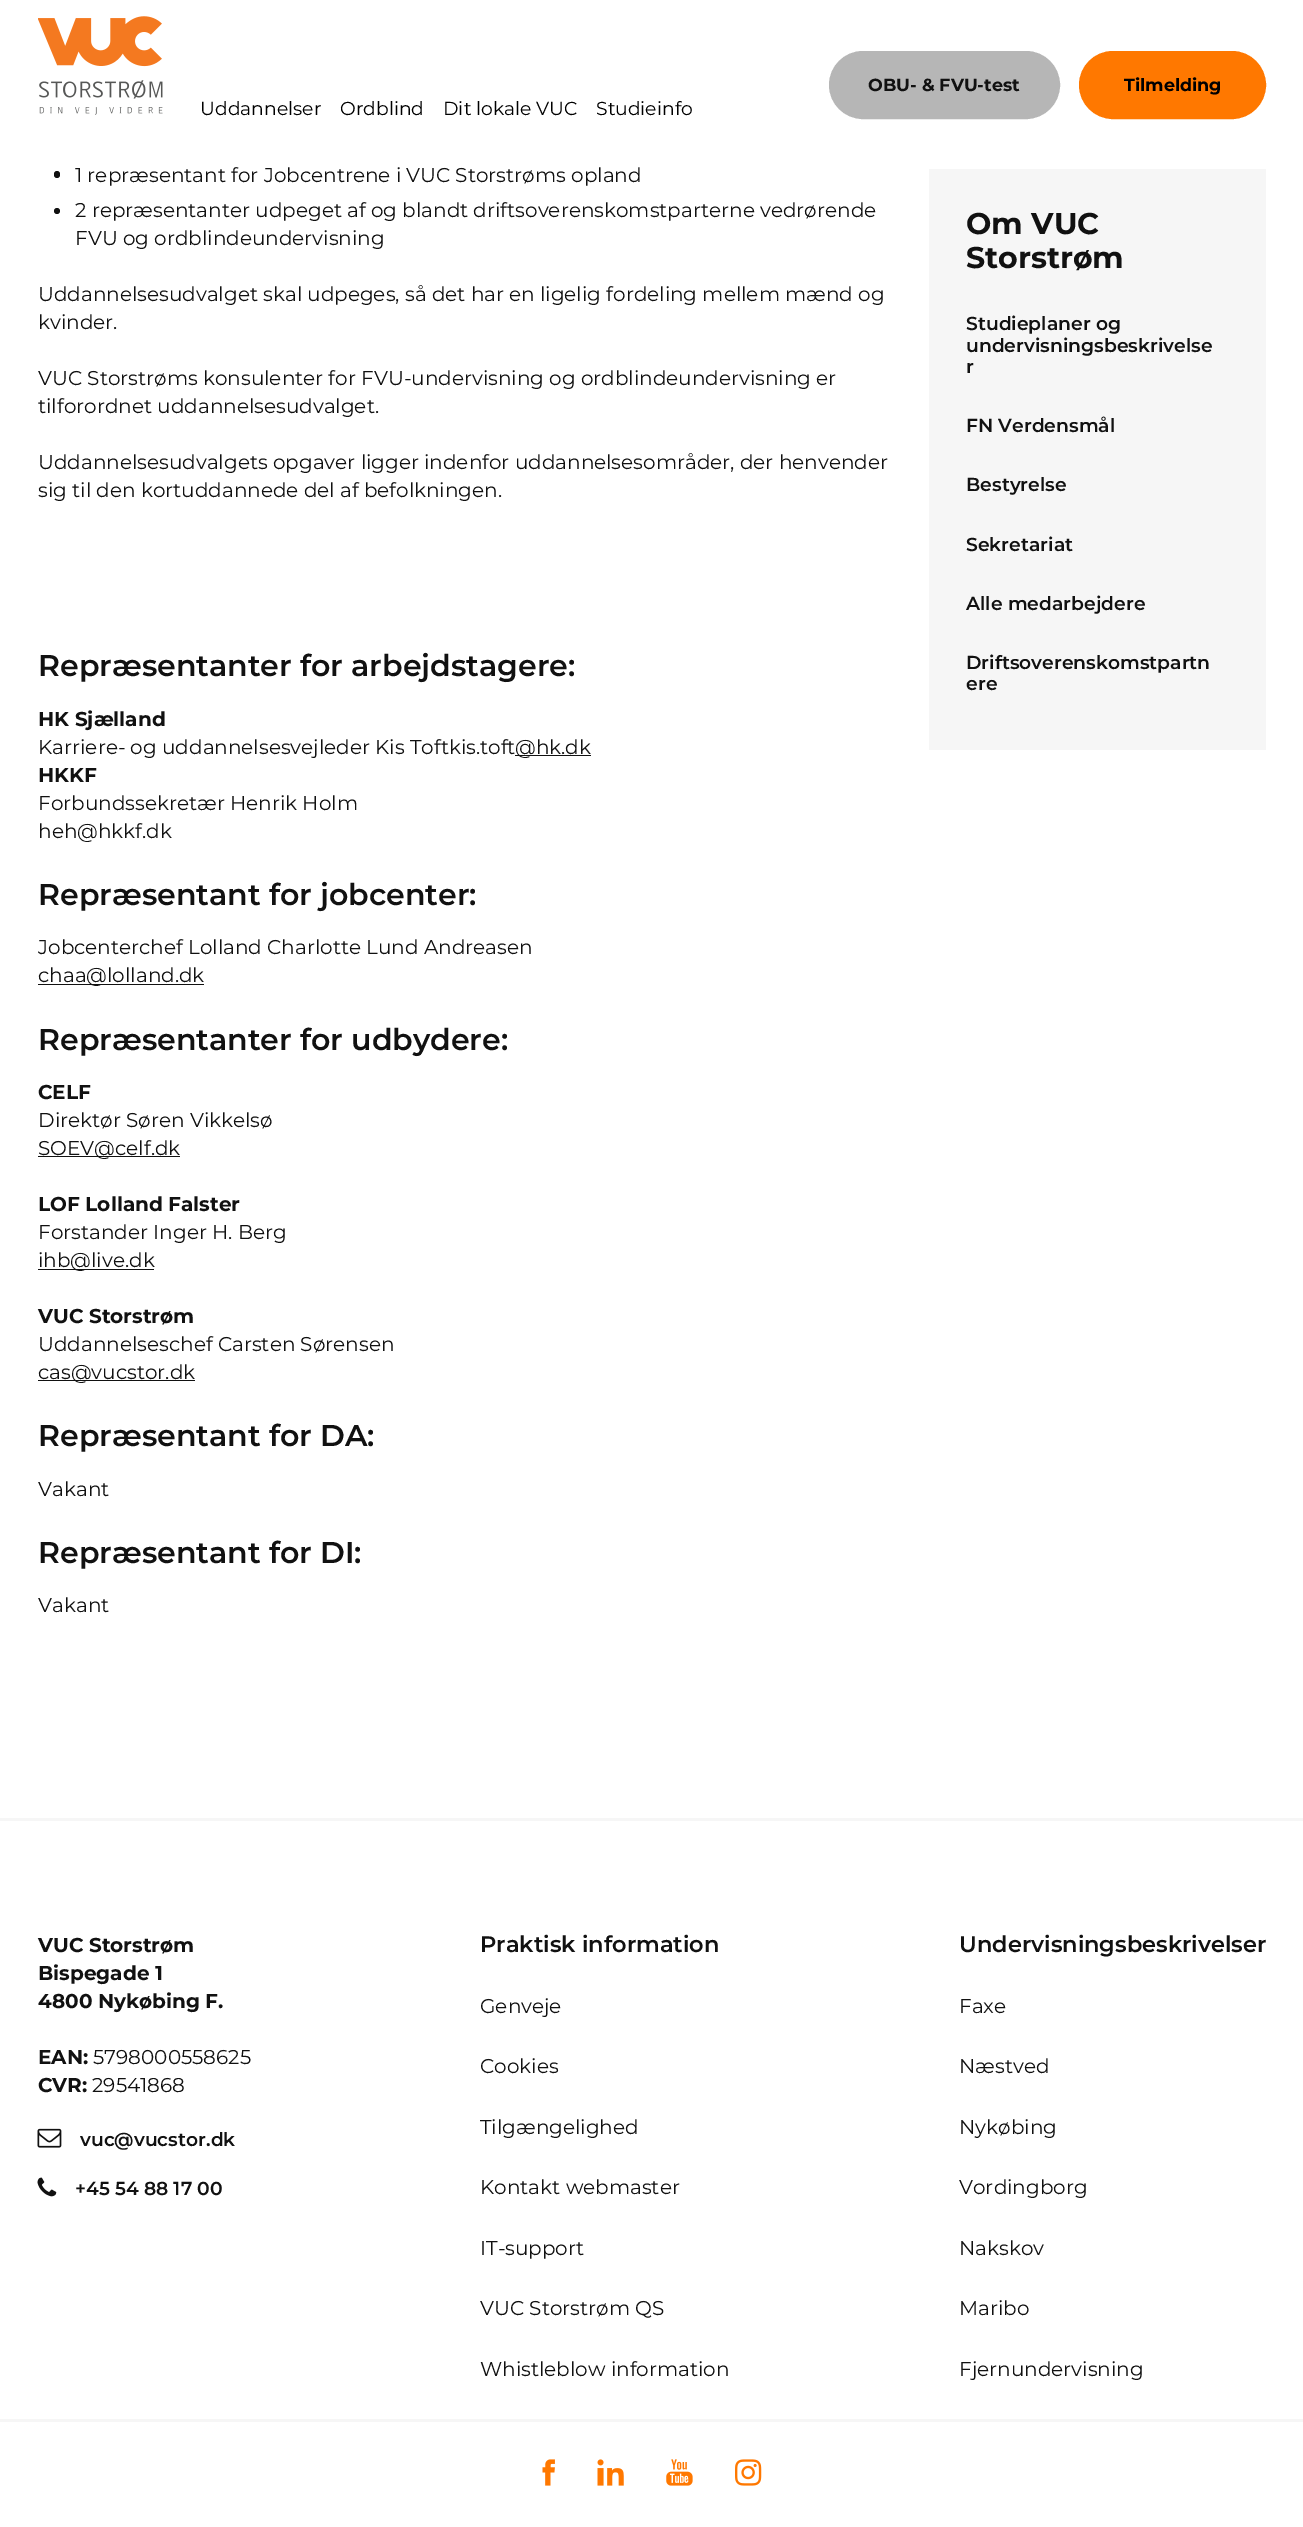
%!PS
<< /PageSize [1303 2527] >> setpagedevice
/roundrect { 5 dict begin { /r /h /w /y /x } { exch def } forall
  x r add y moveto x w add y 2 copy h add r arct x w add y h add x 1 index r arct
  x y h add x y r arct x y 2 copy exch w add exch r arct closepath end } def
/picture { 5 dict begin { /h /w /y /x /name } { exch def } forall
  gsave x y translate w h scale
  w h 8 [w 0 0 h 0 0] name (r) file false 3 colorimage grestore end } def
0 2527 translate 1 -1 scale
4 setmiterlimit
1 setgray
0 0 1303 2527 rectfill
(img1.rgb) 38 16 125 99 picture
0.714 setgray
830.5 52.5 228 65 32.5 roundrect gsave fill grestore
3 setlinewidth
stroke
/Montserrat-Bold [17.5 0 0 -17.5 0 0] selectfont
0.067 setgray
868 91 moveto (OBU- & FVU-test) show
1 0.471 0 setrgbcolor
1080.5 52.5 184 65 32.5 roundrect gsave fill grestore
stroke
0 setgray
1124 91 moveto (Tilmelding) show
/Montserrat-Regular [18.75 0 0 -18.75 0 0] selectfont
200 115 moveto (Uddannelser) show
340 115 moveto (Ordblind) show
443 115 moveto (Dit lokale VUC) show
596 115 moveto (Studieinfo) show
0.067 setgray
54 171 6 7 3 roundrect fill
/Montserrat-Regular [20 0 0 -20 0 0] selectfont
75 182 moveto (1 repræsentant for Jobcentrene i VUC Storstrøms opland) show
newpath 57 211 3 0 360 arc closepath fill
75 217 moveto (2 repræsentanter udpeget af og blandt driftsoverenskomstparterne vedrørende) show
75 245 moveto (FVU og ordblindeundervisning) show
38 301 moveto (Uddannelsesudvalget skal udpeges, så det har en ligelig fordeling mellem mænd og) show
38 329 moveto (kvinder.) show
38 385 moveto (VUC Storstrøms konsulenter for FVU-undervisning og ordblindeundervisning er) show
38 413 moveto (tilforordnet uddannelsesudvalget.) show
38 469 moveto (Uddannelsesudvalgets opgaver ligger indenfor uddannelsesområder, der henvender) show
38 497 moveto (sig til den kortuddannede del af befolkningen.) show
/Montserrat-SemiBold [30 0 0 -30 0 0] selectfont
38 676 moveto (Repræsentanter for arbejdstagere:) show
/Montserrat-Bold [20 0 0 -20 0 0] selectfont
38 726 moveto (HK Sjælland) show
/Montserrat-Regular [20 0 0 -20 0 0] selectfont
38 754 moveto (Karriere- og uddannelsesvejleder Kis Toftkis.toft) show
515 755 76 1 rectfill
515 754 moveto (@hk.dk) show
/Montserrat-Bold [20 0 0 -20 0 0] selectfont
38 782 moveto (HKKF) show
/Montserrat-Regular [20 0 0 -20 0 0] selectfont
38 810 moveto (Forbundssekretær Henrik Holm) show
38 838 moveto (heh@hkkf.dk) show
/Montserrat-SemiBold [30 0 0 -30 0 0] selectfont
38 905 moveto (Repræsentant for jobcenter:) show
/Montserrat-Regular [20 0 0 -20 0 0] selectfont
38 954 moveto (Jobcenterchef Lolland Charlotte Lund Andreasen) show
38 984 166 1 rectfill
38 982 moveto (chaa@lolland.dk) show
/Montserrat-SemiBold [30 0 0 -30 0 0] selectfont
38 1050 moveto (Repræsentanter for udbydere:) show
/Montserrat-Bold [20 0 0 -20 0 0] selectfont
38 1099 moveto (CELF) show
/Montserrat-Regular [20 0 0 -20 0 0] selectfont
38 1127 moveto (Direktør Søren Vikkelsø) show
38 1156 142 1 rectfill
38 1155 moveto (SOEV@celf.dk) show
/Montserrat-Bold [20 0 0 -20 0 0] selectfont
38 1211 moveto (LOF Lolland Falster) show
/Montserrat-Regular [20 0 0 -20 0 0] selectfont
38 1239 moveto (Forstander Inger H. Berg) show
38 1269 116 1 rectfill
38 1267 moveto (ihb@live.dk) show
/Montserrat-Bold [20 0 0 -20 0 0] selectfont
38 1323 moveto (VUC Storstrøm) show
/Montserrat-Regular [20 0 0 -20 0 0] selectfont
38 1351 moveto (Uddannelseschef Carsten Sørensen) show
38 1380 157 1 rectfill
38 1379 moveto (cas@vucstor.dk) show
/Montserrat-SemiBold [30 0 0 -30 0 0] selectfont
38 1446 moveto (Repræsentant for DA:) show
/Montserrat-Regular [20 0 0 -20 0 0] selectfont
38 1496 moveto (Vakant) show
/Montserrat-SemiBold [30 0 0 -30 0 0] selectfont
38 1563 moveto (Repræsentant for DI:) show
/Montserrat-Regular [20 0 0 -20 0 0] selectfont
38 1612 moveto (Vakant) show
0.965 setgray
929 169 337 581 rectfill
/Montserrat-Bold [30 0 0 -30 0 0] selectfont
0.067 setgray
966 234 moveto (Om VUC) show
966 268 moveto (Storstrøm) show
/Montserrat-SemiBold [18.75 0 0 -18.75 0 0] selectfont
966 330 moveto (Studieplaner og) show
966 352 moveto (undervisningsbeskrivelse) show
966 373 moveto (r) show
966 432 moveto (FN Verdensmål) show
966 491 moveto (Bestyrelse) show
966 551 moveto (Sekretariat) show
966 610 moveto (Alle medarbejdere) show
966 669 moveto (Driftsoverenskomstpartn) show
966 690 moveto (ere) show
0.965 setgray
0 1818 1303 3 rectfill
/Montserrat-Bold [20 0 0 -20 0 0] selectfont
0.067 setgray
38 1952 moveto (VUC Storstrøm) show
38 1980 moveto (Bispegade 1) show
38 2008 moveto (4800 Nykøbing F.) show
38 2064 moveto (EAN:) show
/Montserrat-Regular [20 0 0 -20 0 0] selectfont
93 2064 moveto (5798000558625) show
/Montserrat-Bold [20 0 0 -20 0 0] selectfont
38 2092 moveto (CVR:) show
/Montserrat-Regular [20 0 0 -20 0 0] selectfont
92 2092 moveto (29541868) show
(img2.rgb) 37 2128 25 20 picture
/Montserrat-SemiBold [18.75 0 0 -18.75 0 0] selectfont
80 2146 moveto (vuc@vucstor.dk) show
(img3.rgb) 37 2177 20 20 picture
75 2195 moveto (+45 54 88 17 00) show
/Montserrat-SemiBold [22.5 0 0 -22.5 0 0] selectfont
480 1952 moveto (Praktisk information) show
/Montserrat-Regular [20 0 0 -20 0 0] selectfont
480 2013 moveto (Genveje) show
480 2073 moveto (Cookies) show
480 2134 moveto (Tilgængelighed) show
480 2194 moveto (Kontakt webmaster) show
480 2255 moveto (IT-support) show
480 2315 moveto (VUC Storstrøm QS) show
480 2376 moveto (Whistleblow information) show
/Montserrat-SemiBold [22.5 0 0 -22.5 0 0] selectfont
959 1952 moveto (Undervisningsbeskrivelser) show
/Montserrat-Regular [20 0 0 -20 0 0] selectfont
959 2013 moveto (Faxe) show
959 2073 moveto (Næstved) show
959 2134 moveto (Nykøbing) show
959 2194 moveto (Vordingborg) show
959 2255 moveto (Nakskov) show
959 2315 moveto (Maribo) show
959 2376 moveto (Fjernundervisning) show
0.965 setgray
0 2419 1303 3 rectfill
(img4.rgb) 542 2459 13 27 picture
(img5.rgb) 597 2459 27 27 picture
(img6.rgb) 666 2459 27 27 picture
(img7.rgb) 735 2459 27 27 picture
showpage
